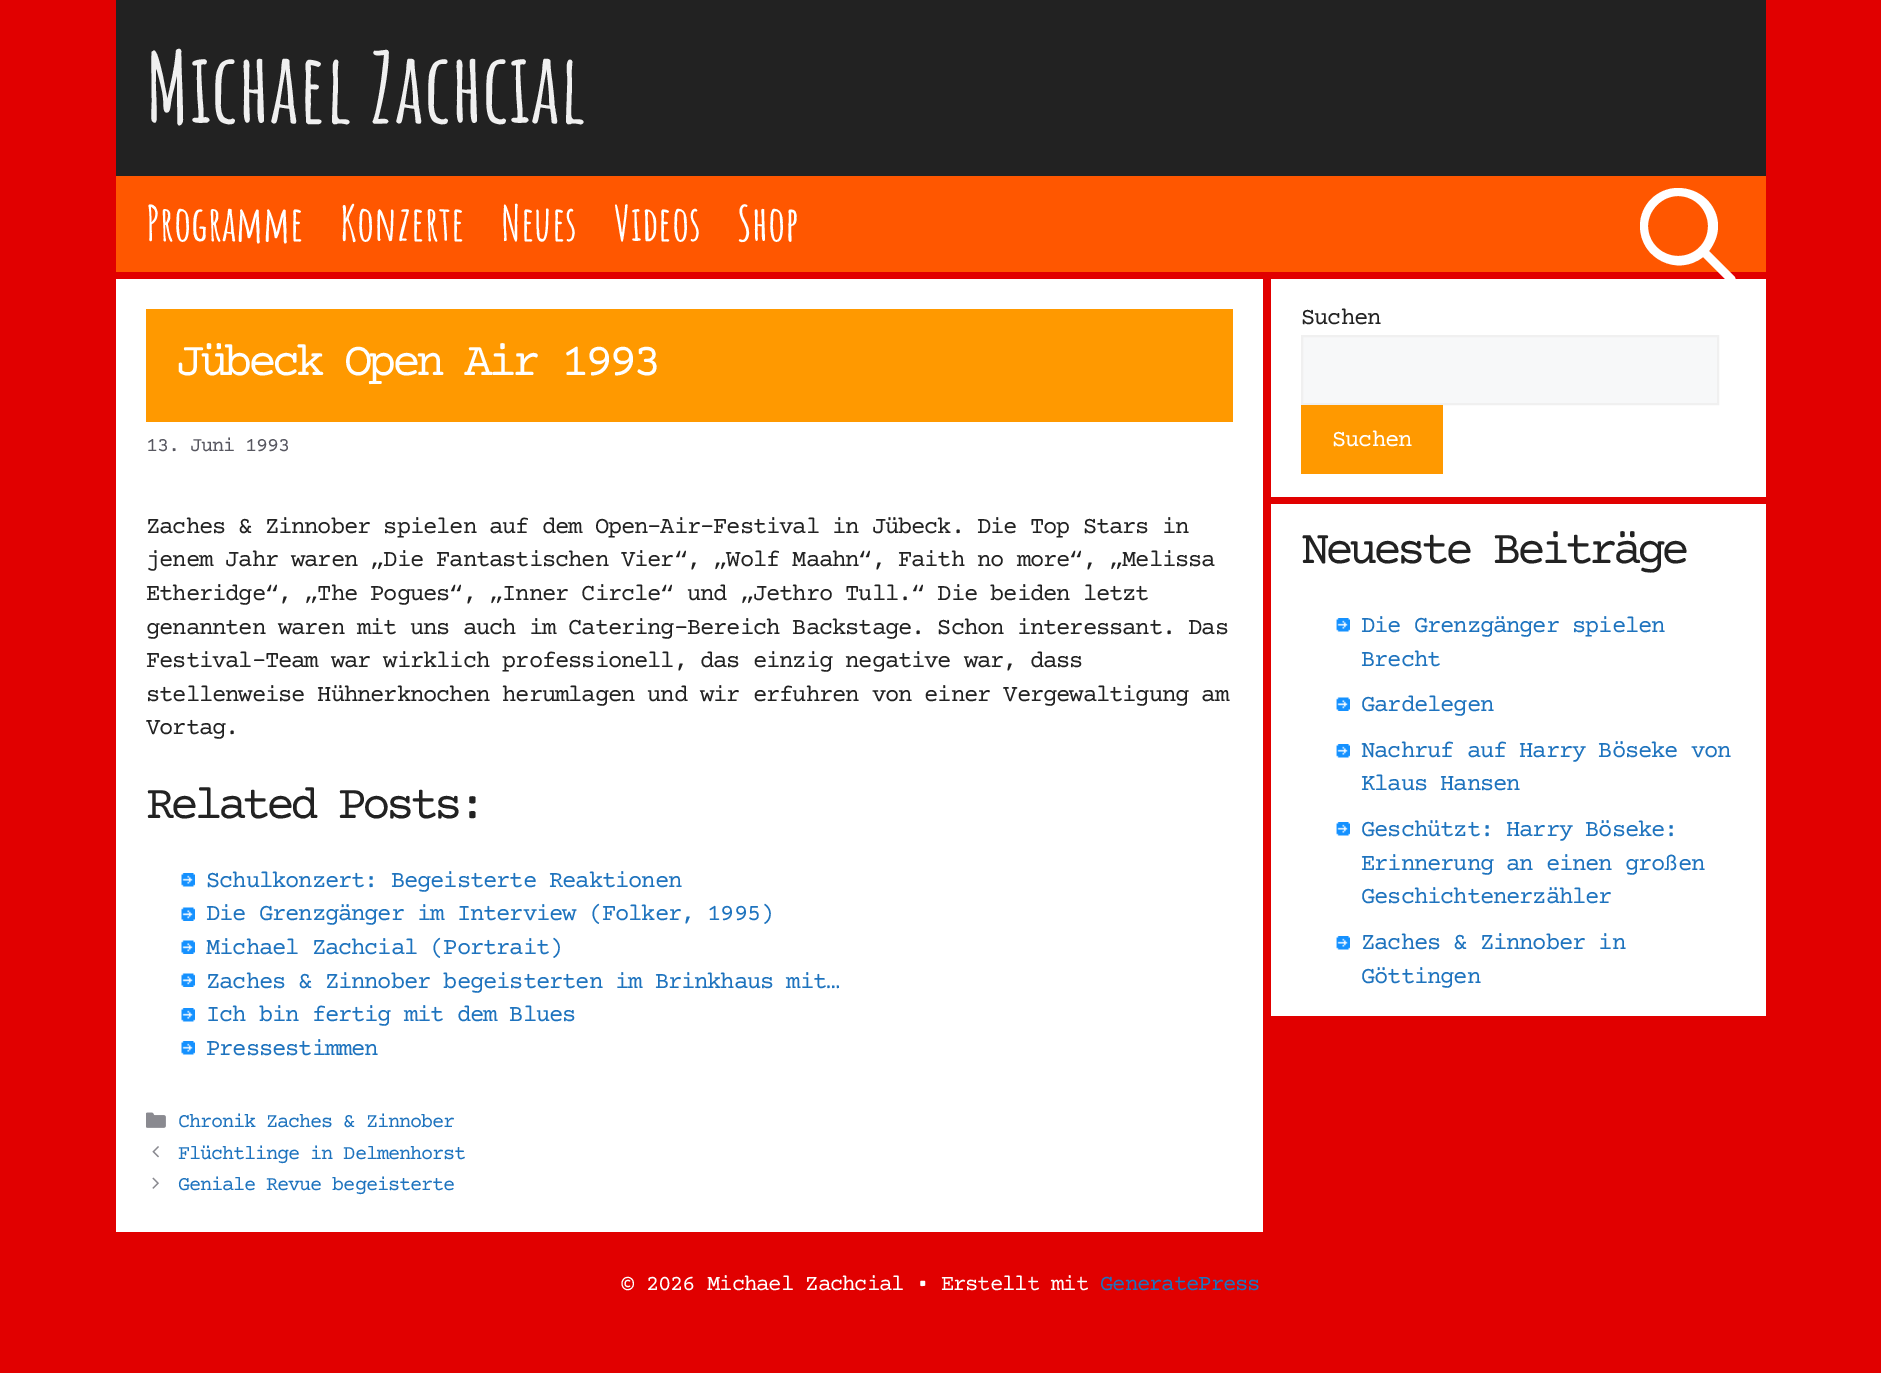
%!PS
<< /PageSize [1881 1373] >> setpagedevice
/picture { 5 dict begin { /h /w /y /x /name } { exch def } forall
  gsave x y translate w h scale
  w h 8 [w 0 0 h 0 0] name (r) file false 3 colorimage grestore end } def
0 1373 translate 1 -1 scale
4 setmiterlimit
0.882 0 0 setrgbcolor
0 0 1881 1373 rectfill
0.133 setgray
116 0 1650 176 rectfill
/AmaticSC-Bold [96 0 0 -96 0 0] selectfont
0.941 setgray
146 123 moveto 0.1 0 (Michael Zachcial) ashow
1 0.341 0 setrgbcolor
116 176 1650 96 rectfill
/AmaticSC-Bold [48 0 0 -48 0 0] selectfont
1 setgray
146 241 moveto (Programme) show
340 241 moveto (Konzerte) show
501 241 moveto (Neues) show
614 241 moveto (Videos) show
737 241 moveto (Shop) show
1271 279 495 218 rectfill
newpath 1678 196 moveto 1662 196 1648 210 1648 226 curveto 1648 243 1662 256 1678 256 curveto 1695 256 1708 243 1708 226 curveto 1708 210 1695 196 1678 196 curveto closepath 1640 226 moveto 1640 205 1657 188 1678 188 curveto 1700 188 1718 205 1718 226 curveto 1718 236 1714 244 1709 251 curveto 1734 276 lineto 1736 278 1736 280 1734 282 curveto 1732 284 1730 284 1728 282 curveto 1703 257 lineto 1678 277 1640 259 1640 226 curveto closepath eofill
116 279 1147 953 rectfill
1 0.6 0 setrgbcolor
146 309 1087 113 rectfill
/CourierPrime-Regular [48 0 0 -48 0 0] selectfont
1 setgray
176 375 moveto -4.75 0 (Jübeck Open Air 1993) ashow
/CourierPrime-Regular [20.4 0 0 -20.4 0 0] selectfont
0.341 0.341 0.376 setrgbcolor
146 451 moveto -1.2 0 (13. Juni 1993) ashow
/CourierPrime-Regular [24 0 0 -24 0 0] selectfont
0.133 setgray
146 533 moveto -1.2 0 (Zaches & Zinnober spielen auf dem Open-Air-Festival in Jübeck. Die Top Stars in) ashow
146 566 moveto -1.2 0 (jenem Jahr waren „Die Fantastischen Vier“, „Wolf Maahn“, Faith no more“, „Melissa) ashow
146 600 moveto -1.2 0 (Etheridge“, „The Pogues“, „Inner Circle“ und „Jethro Tull.“ Die beiden letzt) ashow
146 634 moveto -1.2 0 (genannten waren mit uns auch im Catering-Bereich Backstage. Schon interessant. Das) ashow
146 667 moveto -1.2 0 (Festival-Team war wirklich professionell, das einzig negative war, dass) ashow
146 701 moveto -1.2 0 (stellenweise Hühnerknochen herumlagen und wir erfuhren von einer Vergewaltigung am) ashow
146 734 moveto -1.2 0 (Vortag.) ashow
/CourierPrime-Regular [48 0 0 -48 0 0] selectfont
146 818 moveto -4.75 0 (Related Posts:) ashow
(img1.rgb) 181 873 14 14 picture
/CourierPrime-Regular [24 0 0 -24 0 0] selectfont
0.118 0.451 0.745 setrgbcolor
206 887 moveto -1.2 0 (Schulkonzert: Begeisterte Reaktionen) ashow
(img2.rgb) 181 907 14 14 picture
206 920 moveto -1.2 0 (Die Grenzgänger im Interview \(Folker, 1995\)) ashow
(img2.rgb) 181 940 14 14 picture
206 954 moveto -1.2 0 (Michael Zachcial \(Portrait\)) ashow
(img2.rgb) 181 973 14 14 picture
206 988 moveto -1.2 0 (Zaches & Zinnober begeisterten im Brinkhaus mit…) ashow
(img1.rgb) 181 1008 14 14 picture
206 1021 moveto -1.2 0 (Ich bin fertig mit dem Blues) ashow
(img1.rgb) 181 1041 14 14 picture
206 1055 moveto -1.2 0 (Pressestimmen) ashow
(img3.rgb) 146 1112 20 16 picture
/CourierPrime-Regular [20.4 0 0 -20.4 0 0] selectfont
178 1127 moveto -1.2 0 (Chronik Zaches & Zinnober) ashow
(img4.rgb) 152 1146 7 12 picture
178 1159 moveto -1.2 0 (Flüchtlinge in Delmenhorst) ashow
(img5.rgb) 152 1177 7 12 picture
178 1190 moveto -1.2 0 (Geniale Revue begeisterte) ashow
/CourierPrime-Regular [24 0 0 -24 0 0] selectfont
0.133 setgray
1301 324 moveto -1.2 0 (Suchen) ashow
0.969 0.973 0.976 setrgbcolor
newpath 1302 336 moveto 1718 336 lineto 1718 404 lineto 1302 404 lineto closepath gsave fill grestore
0.941 setgray
2 setlinewidth
stroke
1 0.6 0 setrgbcolor
1301 405 142 69 rectfill
1 setgray
1332 446 moveto -1.2 0 (Suchen) ashow
1271 504 495 512 rectfill
/CourierPrime-Regular [48 0 0 -48 0 0] selectfont
0.133 setgray
1301 563 moveto -4.75 0 (Neueste Beiträge) ashow
(img6.rgb) 1336 618 14 14 picture
/CourierPrime-Regular [24 0 0 -24 0 0] selectfont
0.118 0.451 0.745 setrgbcolor
1361 632 moveto -1.2 0 (Die Grenzgänger spielen) ashow
1361 666 moveto -1.2 0 (Brecht) ashow
(img7.rgb) 1336 697 14 14 picture
1361 711 moveto -1.2 0 (Gardelegen) ashow
(img6.rgb) 1336 744 14 14 picture
1361 757 moveto -1.2 0 (Nachruf auf Harry Böseke von) ashow
1361 790 moveto -1.2 0 (Klaus Hansen) ashow
(img6.rgb) 1336 822 14 14 picture
1361 836 moveto -1.2 0 (Geschützt: Harry Böseke:) ashow
1361 870 moveto -1.2 0 (Erinnerung an einen großen) ashow
1361 903 moveto -1.2 0 (Geschichtenerzähler) ashow
(img6.rgb) 1336 936 14 14 picture
1361 949 moveto -1.2 0 (Zaches & Zinnober in) ashow
1361 983 moveto -1.2 0 (Göttingen) ashow
/CourierPrime-Regular [22.5 0 0 -22.5 0 0] selectfont
1 setgray
621 1290 moveto -1.2 0 (© 2026 Michael Zachcial • Erstellt mit) ashow
0.118 0.451 0.745 setrgbcolor
1100 1290 moveto -1.2 0 (GeneratePress) ashow
showpage
